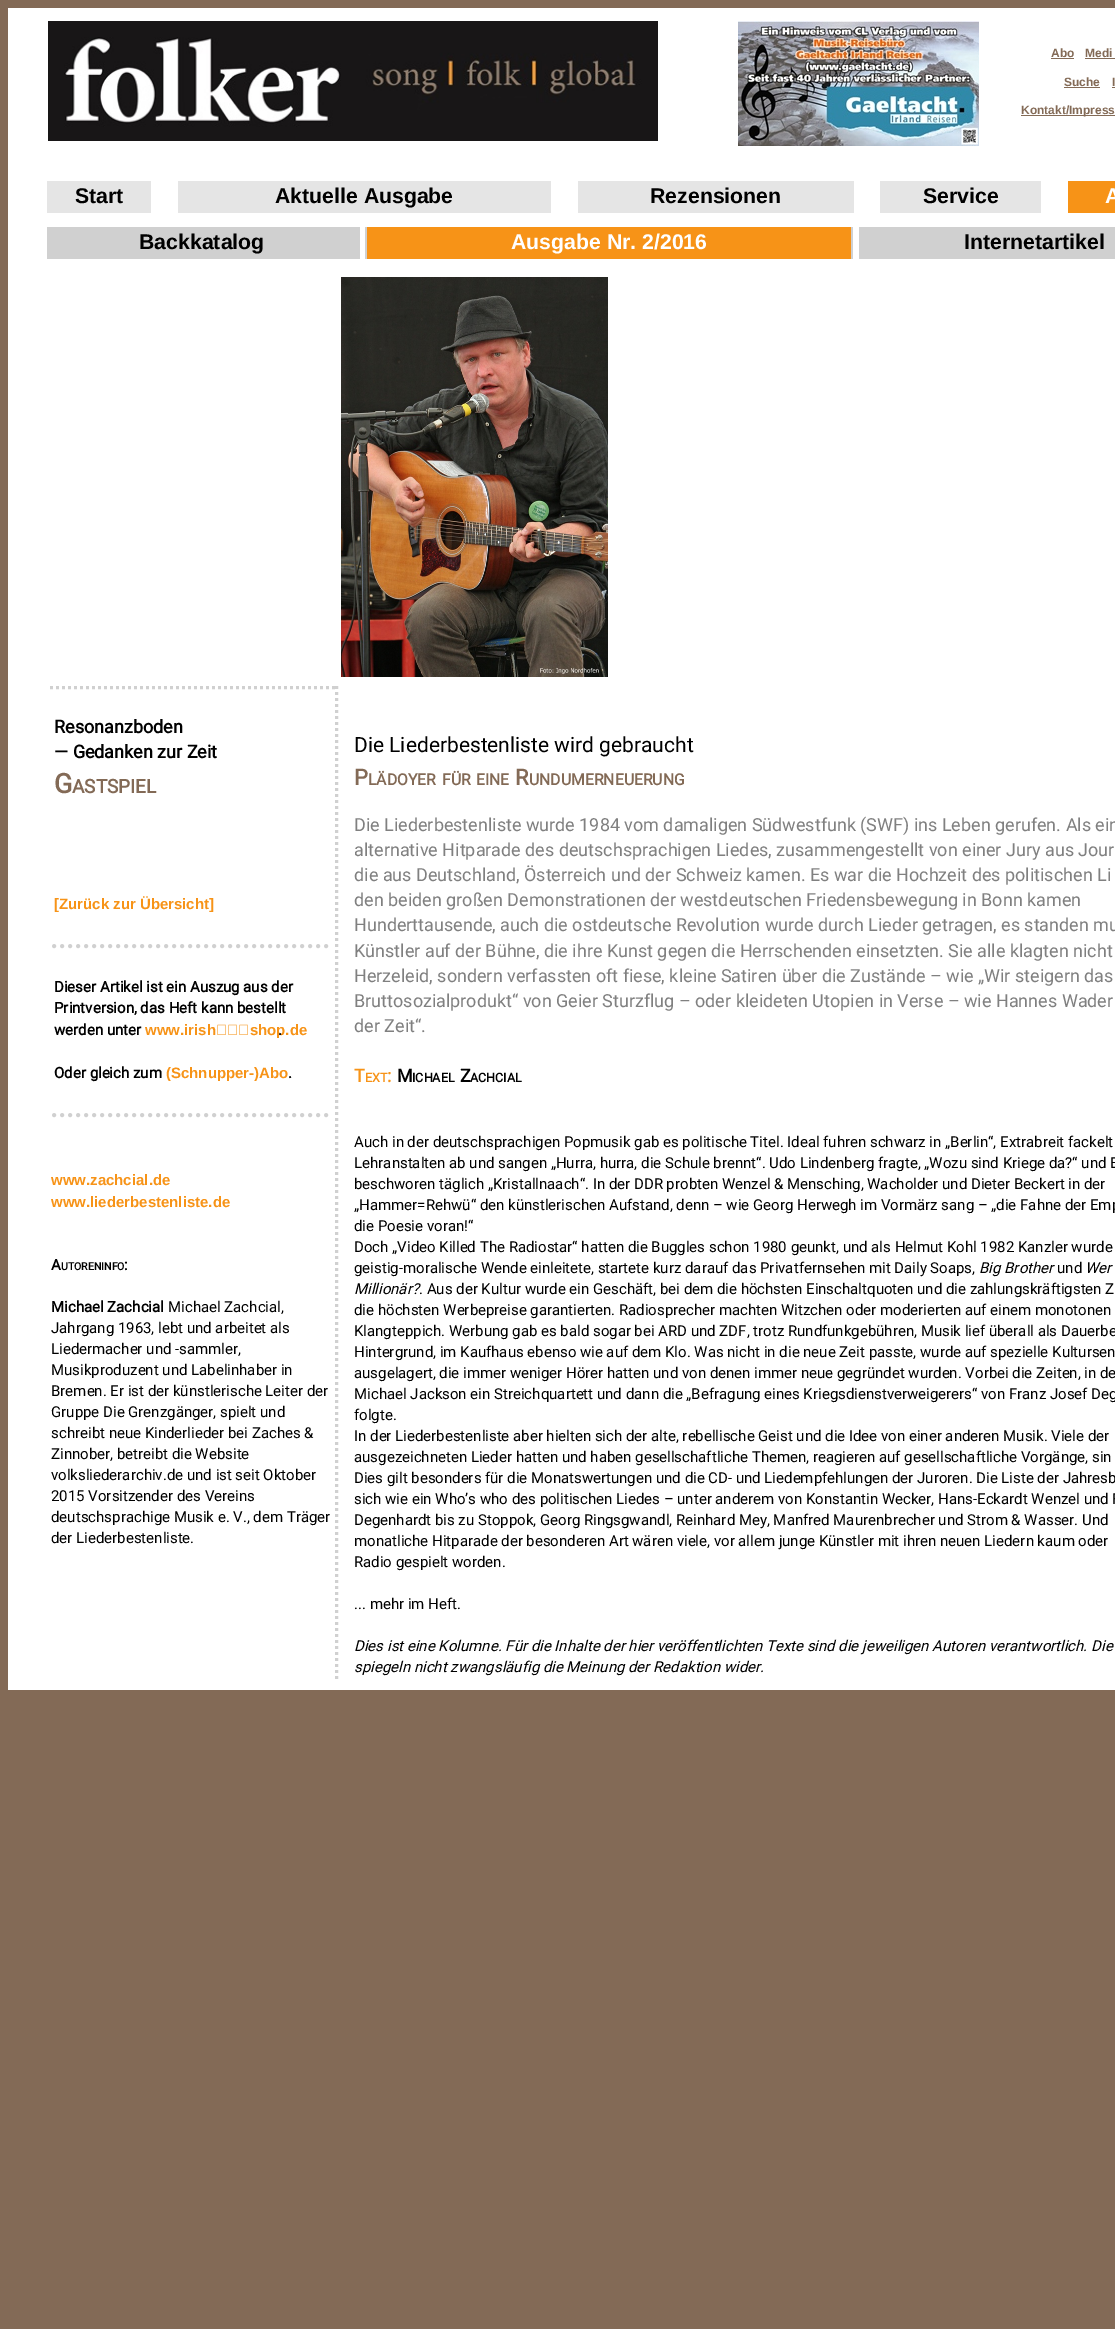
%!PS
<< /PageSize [1115 2329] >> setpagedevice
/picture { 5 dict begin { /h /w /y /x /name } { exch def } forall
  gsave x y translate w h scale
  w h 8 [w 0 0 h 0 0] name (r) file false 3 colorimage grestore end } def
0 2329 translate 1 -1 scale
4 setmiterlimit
0.514 0.416 0.337 setrgbcolor
0 0 1115 2329 rectfill
1 setgray
8 8 1107 1682 rectfill
(img1.rgb) 48 21 610 120 picture
(img2.rgb) 738 21 241 125 picture
/LiberationSans-Bold [12 0 0 -12 0 0] selectfont
0.514 0.416 0.337 setrgbcolor
1051 57 moveto (Abo) show
1051 58 23 1 rectfill
1085 57 moveto (Medi) show
1085 58 30 1 rectfill
1064 86 moveto (Suche) show
1064 87 36 1 rectfill
1112 86 moveto (I) show
1112 87 3 1 rectfill
1021 115 94 1 rectfill
1021 114 moveto (Kontakt/Impress) show
0.898 setgray
47 181 104 32 rectfill
/LiberationSans-Bold [21.25 0 0 -21.25 0 0] selectfont
0 setgray
75 203 moveto (Start) show
0.898 setgray
178 181 373 32 rectfill
0 setgray
275 203 moveto (Aktuelle Ausgabe) show
0.898 setgray
578 181 276 32 rectfill
0 setgray
650 203 moveto (Rezensionen) show
0.898 setgray
880 181 161 32 rectfill
0 setgray
923 203 moveto (Service) show
0.969 0.576 0.09 setrgbcolor
1068 181 47 32 rectfill
1 setgray
1105 203 moveto (A) show
0.816 setgray
47 227 1068 32 rectfill
0 setgray
139 249 moveto (Backkatalog) show
1 setgray
360 227 5 32 rectfill
0.969 0.576 0.09 setrgbcolor
367 227 484 32 rectfill
1 setgray
511 249 moveto (Ausgabe Nr. 2/2016) show
853 227 6 32 rectfill
0 setgray
964 249 moveto (Internetartikel) show
(img3.rgb) 341 277 267 400 picture
0.816 setgray
3 setlinewidth
[3 3] 0 setdash
newpath 50 687.5 moveto 338 687.5 lineto stroke
newpath 336.5 686 moveto 336.5 1679 lineto stroke
/Roboto-Bold [18 0 0 -18 0 0] selectfont
0 setgray
54 733 moveto (Resonanzboden) show
54 758 moveto (— Gedanken zur Zeit) show
/Roboto-Bold [27 0 0 -27 0 0] selectfont
0.514 0.416 0.337 setrgbcolor
54 793 moveto (G) show
/Roboto-Bold [19 0 0 -19 0 0] selectfont
72 793 moveto (ASTSPIEL) show
/LiberationSans-Bold [15 0 0 -15 0 0] selectfont
0.969 0.576 0.09 setrgbcolor
54 909 moveto ([Zurück zur Übersicht]) show
0.816 setgray
4 setlinewidth
1 setlinecap
[0 8] 0 setdash
newpath 54 946 moveto 331 946 lineto stroke
/Roboto-Bold [15 0 0 -15 0 0] selectfont
0 setgray
54 992 moveto (Dieser Artikel ist ein Auszug aus der) show
54 1013 moveto (Printversion, das Heft kann bestellt) show
54 1035 moveto (werden unter) show
/LiberationSans-Bold [15 0 0 -15 0 0] selectfont
0.969 0.576 0.09 setrgbcolor
145 1035 moveto (www.irish‑shop.de) show
/Roboto-Bold [15 0 0 -15 0 0] selectfont
0 setgray
278 1035 moveto (.) show
54 1078 moveto (Oder gleich zum) show
/LiberationSans-Bold [15 0 0 -15 0 0] selectfont
0.969 0.576 0.09 setrgbcolor
166 1078 moveto (\(Schnupper-\)Abo) show
/Roboto-Bold [15 0 0 -15 0 0] selectfont
0 setgray
288 1078 moveto (.) show
0.816 setgray
newpath 54 1115 moveto 331 1115 lineto stroke
/LiberationSans-Bold [15 0 0 -15 0 0] selectfont
0.969 0.576 0.09 setrgbcolor
51 1185 moveto (www.zachcial.de) show
51 1207 moveto (www.liederbestenliste.de) show
/Roboto-Bold [15 0 0 -15 0 0] selectfont
0 setgray
51 1270 moveto (A) show
/Roboto-Bold [10.5 0 0 -10.5 0 0] selectfont
61 1270 moveto (UTORENINFO) show
/Roboto-Bold [15 0 0 -15 0 0] selectfont
124 1270 moveto (:) show
51 1312 moveto (Michael Zachcial) show
/Roboto-Regular [15 0 0 -15 0 0] selectfont
168 1312 moveto (Michael Zachcial,) show
51 1333 moveto (Jahrgang 1963, lebt und arbeitet als) show
51 1354 moveto (Liedermacher und -sammler,) show
51 1375 moveto (Musikproduzent und Labelinhaber in) show
51 1396 moveto (Bremen. Er ist der künstlerische Leiter der) show
51 1417 moveto (Gruppe Die Grenzgänger, spielt und) show
51 1438 moveto (schreibt neue Kinderlieder bei Zaches &) show
51 1459 moveto (Zinnober, betreibt die Website) show
51 1480 moveto (volksliederarchiv.de und ist seit Oktober) show
51 1501 moveto (2015 Vorsitzender des Vereins) show
51 1522 moveto (deutschsprachige Musik e. V., dem Träger) show
51 1543 moveto (der Liederbestenliste.) show
/Roboto-Regular [21 0 0 -21 0 0] selectfont
354 752 moveto (Die Liederbestenliste wird gebraucht) show
/Roboto-Bold [22 0 0 -22 0 0] selectfont
0.514 0.416 0.337 setrgbcolor
354 785 moveto (P) show
/Roboto-Bold [15.75 0 0 -15.75 0 0] selectfont
368 785 moveto (LÄDOYER) show
442 785 moveto (FÜR) show
476 785 moveto (EINE) show
/Roboto-Bold [22 0 0 -22 0 0] selectfont
515 785 moveto (R) show
/Roboto-Bold [15.75 0 0 -15.75 0 0] selectfont
529 785 moveto (UNDUMERNEUERUNG) show
/Roboto-Regular [18 0 0 -18 0 0] selectfont
0.502 setgray
354 831 moveto (Die Liederbestenliste wurde 1984 vom damaligen Südwestfunk \(SWF\) ins Leben gerufen. Als ein) show
354 856 moveto (alternative Hitparade des deutschsprachigen Liedes, zusammengestellt von einer Jury aus Jour) show
354 881 moveto (die aus Deutschland, Österreich und der Schweiz kamen. Es war die Hochzeit des politischen Li) show
354 906 moveto (den beiden großen Demonstrationen der westdeutschen Friedensbewegung in Bonn kamen) show
354 931 moveto (Hunderttausende, auch die ostdeutsche Revolution wurde durch Lieder getragen, es standen mu) show
354 957 moveto (Künstler auf der Bühne, die ihre Kunst gegen die Herrschenden einsetzten. Sie alle klagten nicht) show
354 982 moveto (Herzeleid, sondern verfassten oft fiese, kleine Satiren über die Zustände – wie „Wir steigern das) show
354 1007 moveto (Bruttosozialprodukt“ von Geier Sturzflug – oder kleideten Utopien in Verse – wie Hannes Wader) show
354 1032 moveto (der Zeit“.) show
/Roboto-Bold [18 0 0 -18 0 0] selectfont
0.969 0.576 0.09 setrgbcolor
354 1082 moveto (T) show
/Roboto-Bold [12.5 0 0 -12.5 0 0] selectfont
365 1082 moveto (EXT) show
/Roboto-Bold [18 0 0 -18 0 0] selectfont
387 1082 moveto (:) show
0 setgray
397 1082 moveto (M) show
/Roboto-Bold [12.5 0 0 -12.5 0 0] selectfont
412 1082 moveto (ICHAEL) show
/Roboto-Bold [18 0 0 -18 0 0] selectfont
460 1082 moveto (Z) show
/Roboto-Bold [12.5 0 0 -12.5 0 0] selectfont
470 1082 moveto (ACHCIAL) show
/Roboto-Regular [15 0 0 -15 0 0] selectfont
354 1147 moveto (Auch in der deutschsprachigen Popmusik gab es politische Titel. Ideal fuhren schwarz in „Berlin“, Extrabreit fackelt) show
354 1168 moveto (Lehranstalten ab und sangen „Hurra, hurra, die Schule brennt“. Udo Lindenberg fragte, „Wozu sind Kriege da?“ und B) show
354 1189 moveto (beschworen täglich „Kristallnaach“. In der DDR probten Wenzel & Mensching, Wacholder und Dieter Beckert in der) show
354 1210 moveto („Hammer=Rehwü“ den künstlerischen Aufstand, denn – wie Georg Herwegh im Vormärz sang – „die Fahne der Emp) show
354 1231 moveto (die Poesie voran!“) show
354 1252 moveto (Doch „Video Killed The Radiostar“ hatten die Buggles schon 1980 geunkt, und als Helmut Kohl 1982 Kanzler wurde) show
354 1273 moveto (geistig-moralische Wende einleitete, startete kurz darauf das Privatfernsehen mit Daily Soaps,) show
/Roboto-Italic [15 0 0 -15 0 0] selectfont
979 1273 moveto (Big Brother) show
/Roboto-Regular [15 0 0 -15 0 0] selectfont
1057 1273 moveto (und) show
/Roboto-Italic [15 0 0 -15 0 0] selectfont
1085 1273 moveto (Wer) show
354 1294 moveto (Millionär?) show
/Roboto-Regular [15 0 0 -15 0 0] selectfont
419 1294 moveto (. Aus der Kultur wurde ein Geschäft, bei dem die höchsten Einschaltquoten und die zahlungskräftigsten Z) show
354 1315 moveto (die höchsten Werbepreise garantierten. Radiosprecher machten Witzchen oder moderierten auf einem monotonen) show
354 1336 moveto (Klangteppich. Werbung gab es bald sogar bei ARD und ZDF, trotz Rundfunkgebühren, Musik lief überall als Dauerbe) show
354 1357 moveto (Hintergrund, im Kaufhaus ebenso wie auf dem Klo. Was nicht in die neue Zeit passte, wurde auf spezielle Kultursen) show
354 1378 moveto (ausgelagert, die immer weniger Hörer hatten und von denen immer neue gegründet wurden. Vorbei die Zeiten, in de) show
354 1399 moveto (Michael Jackson ein Streichquartett und dann die „Befragung eines Kriegsdienstverweigerers“ von Franz Josef Deg) show
354 1420 moveto (folgte.) show
354 1441 moveto (In der Liederbestenliste aber hielten sich der alte, rebellische Geist und die Idee von einer anderen Musik. Viele der) show
354 1462 moveto (ausgezeichneten Lieder hatten und haben gesellschaftliche Themen, reagieren auf gesellschaftliche Vorgänge, sin) show
354 1483 moveto (Dies gilt besonders für die Monatswertungen und die CD- und Liedempfehlungen der Juroren. Die Liste der Jahresb) show
354 1504 moveto (sich wie ein Who’s who des politischen Liedes – unter anderem von Konstantin Wecker, Hans-Eckardt Wenzel und F) show
354 1525 moveto (Degenhardt bis zu Stoppok, Georg Ringsgwandl, Reinhard Mey, Manfred Maurenbrecher und Strom & Wasser. Und) show
354 1546 moveto (monatliche Hitparade der besonderen Art wären viele, vor allem junge Künstler mit ihren neuen Liedern kaum oder) show
354 1567 moveto (Radio gespielt worden.) show
354 1609 moveto (... mehr im Heft.) show
/Roboto-Italic [15 0 0 -15 0 0] selectfont
354 1651 moveto (Dies ist eine Kolumne. Für die Inhalte der hier veröffentlichten Texte sind die jeweiligen Autoren verantwortlich. Die) show
354 1672 moveto (spiegeln nicht zwangsläufig die Meinung der Redaktion wider.) show
showpage
